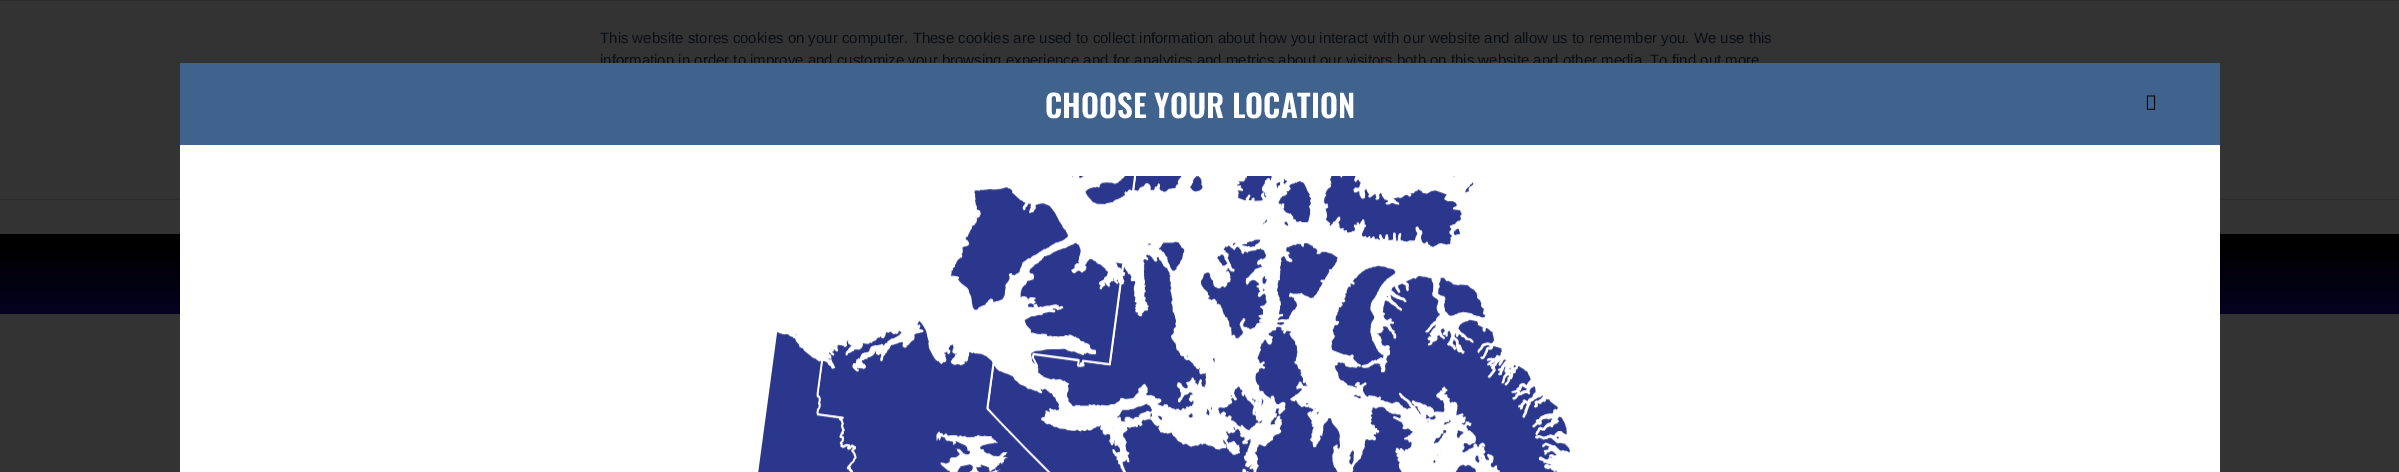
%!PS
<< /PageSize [2399 472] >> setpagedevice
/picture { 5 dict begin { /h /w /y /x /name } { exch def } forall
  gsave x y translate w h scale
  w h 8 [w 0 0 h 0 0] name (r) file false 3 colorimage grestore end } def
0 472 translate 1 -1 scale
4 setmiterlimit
0.2 setgray
0 0 2399 472 rectfill
0.161 0.169 0.176 setrgbcolor
0 0 2399 1 rectfill
0 199 2399 1 rectfill
/LiberationSans-Regular [15 0 0 -15 0 0] selectfont
0.039 0.055 0.071 setrgbcolor
600 43 moveto (This website stores cookies on your computer. These cookies are used to collect information about how you interact with our website and allow us to remember you. We use this) show
600 65 moveto (information in order to improve and customize your browsing experience and for analytics and metrics about our visitors both on this website and other media. To find out more) show
0.247 0.388 0.549 setrgbcolor
180 63 2040 82 rectfill
/Oswald-SemiBold [31.25 0 0 -31.25 0 0] selectfont
1 setgray
1045 118 moveto (CHOOSE YOUR LOCATION) show
(img1.rgb) 2146 95 10 15 picture
gsave newpath 0 234 moveto 2399 234 lineto 2399 314 lineto 0 314 lineto closepath clip newpath
<< /ShadingType 2 /ColorSpace /DeviceRGB /Coords [1200 234 1200 314] /Extend [true true] /Function << /FunctionType 3 /Domain [0 1] /Functions [<< /FunctionType 2 /Domain [0 1] /C0 [0 0 0] /C1 [0 0 0] /N 1 >> << /FunctionType 2 /Domain [0 1] /C0 [0 0 0] /C1 [0.016 0.008 0.122] /N 1 >>] /Bounds [0.16] /Encode [0 1 0 1] >> >> shfill grestore
180 145 2040 327 rectfill
(img2.rgb) 758 176 812 296 picture
showpage
